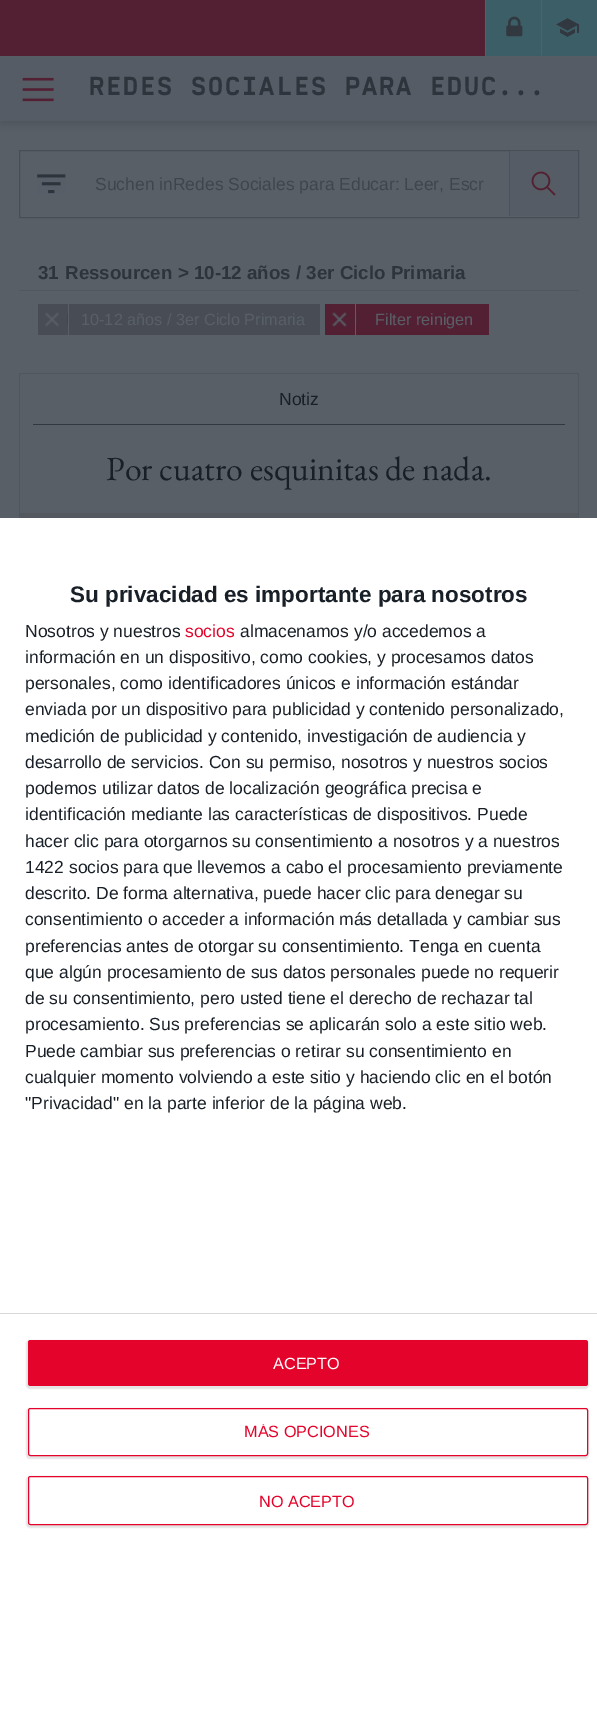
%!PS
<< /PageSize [597 1723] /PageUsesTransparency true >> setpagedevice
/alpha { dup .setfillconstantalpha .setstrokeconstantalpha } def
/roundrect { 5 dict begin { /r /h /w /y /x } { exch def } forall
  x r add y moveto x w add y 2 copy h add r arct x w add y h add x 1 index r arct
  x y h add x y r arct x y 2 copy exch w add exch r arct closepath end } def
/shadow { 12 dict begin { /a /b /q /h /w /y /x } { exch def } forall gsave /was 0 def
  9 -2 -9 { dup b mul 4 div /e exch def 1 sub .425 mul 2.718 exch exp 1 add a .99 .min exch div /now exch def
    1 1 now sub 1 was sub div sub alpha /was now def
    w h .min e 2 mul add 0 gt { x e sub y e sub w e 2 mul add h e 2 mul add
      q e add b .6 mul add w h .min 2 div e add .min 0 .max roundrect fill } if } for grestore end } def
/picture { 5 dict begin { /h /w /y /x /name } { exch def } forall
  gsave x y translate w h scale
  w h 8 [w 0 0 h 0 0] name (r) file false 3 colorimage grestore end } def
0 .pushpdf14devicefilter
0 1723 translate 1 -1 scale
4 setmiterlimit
0.349 0.373 0.404 setrgbcolor
0 0 597 1723 rectfill
0.322 0.125 0.196 setrgbcolor
0 0 485 56 rectfill
0.235 0.373 0.404 setrgbcolor
486 0 55 56 rectfill
(img1.rgb) 506 16 17 21 picture
542 0 55 56 rectfill
(img2.rgb) 556 18 23 19 picture
0.098 0.122 0.153 setrgbcolor
0 60 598 65 0 4 0.16 shadow
0.337 0.361 0.396 setrgbcolor
0 59 597 62 rectfill
(img3.rgb) 22 77 32 25 picture
/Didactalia-Bold [27.5 0 0 -27.5 0 0] selectfont
0.18 0.204 0.235 setrgbcolor
88 95 moveto (Redes Sociales para Educ...) show
0.282 0.306 0.337 setrgbcolor
19.5 150.5 559 67 rectstroke
(img4.rgb) 37 174 29 20 picture
/LiberationSans-Regular [17.5 0 0 -17.5 0 0] selectfont
0.247 0.271 0.302 setrgbcolor
95 190 moveto (Suchen inRedes Sociales para Educar: Leer, Escr) show
0.337 0.361 0.396 setrgbcolor
510 151 68 65 rectfill
0.298 0.322 0.353 setrgbcolor
509 151 1 65 rectfill
(img5.rgb) 531 171 25 25 picture
0.318 0.341 0.376 setrgbcolor
19 290 560 1 rectfill
/LiberationSans-Bold [18.75 0 0 -18.75 0 0] selectfont
0.18 0.204 0.235 setrgbcolor
38 279 moveto (31) show
65 279 moveto (Ressourcen > 10-12 años / 3er Ciclo Primaria) show
0.282 0.302 0.333 setrgbcolor
38 304 282 31 rectfill
(img6.rgb) 45 312 23 15 picture
0.349 0.373 0.404 setrgbcolor
68 304 1 31 rectfill
/LiberationSans-Regular [16.25 0 0 -16.25 0 0] selectfont
81 325 moveto (10-12 años / 3er Ciclo Primaria) show
0.322 0.125 0.196 setrgbcolor
325 304 164 31 rectfill
(img7.rgb) 332 312 25 15 picture
0.349 0.373 0.404 setrgbcolor
355 304 1 31 rectfill
375 325 moveto (Filter reinigen) show
0.314 0.337 0.369 setrgbcolor
19 373 560 1 rectfill
578 373 1 145 rectfill
19 373 1 145 rectfill
0.196 0.22 0.255 setrgbcolor
33 424 532 1 rectfill
/LiberationSans-Regular [17.5 0 0 -17.5 0 0] selectfont
0.098 0.122 0.153 setrgbcolor
279 405 moveto (Notiz) show
/EBGaramond-Regular [33.75 0 0 -33.75 0 0] selectfont
106 480 moveto (Por cuatro esquinitas de nada.) show
0.329 0.349 0.376 setrgbcolor
20 513 558 5 rectfill
1 setgray
0 518 597 1205 rectfill
/LiberationSans-Bold [22.5 0 0 -22.5 0 0] selectfont
0.098 0.122 0.153 setrgbcolor
70 602 moveto (Su privacidad es importante para nosotros) show
/LiberationSans-Regular [17.5 0 0 -17.5 0 0] selectfont
25 637 moveto (Nosotros y nuestros) show
0.894 0.016 0.169 setrgbcolor
185 637 moveto (socios) show
0.098 0.122 0.153 setrgbcolor
240 637 moveto (almacenamos y/o accedemos a) show
25 663 moveto (información en un dispositivo, como cookies, y procesamos datos) show
25 689 moveto (personales, como identificadores únicos e información estándar) show
25 715 moveto (enviada por un dispositivo para publicidad y contenido personalizado,) show
25 742 moveto (medición de publicidad y contenido, investigación de audiencia y) show
25 768 moveto (desarrollo de servicios. Con su permiso, nosotros y nuestros socios) show
25 794 moveto (podemos utilizar datos de localización geográfica precisa e) show
25 820 moveto (identificación mediante las características de dispositivos. Puede) show
25 847 moveto (hacer clic para otorgarnos su consentimiento a nosotros y a nuestros) show
25 873 moveto (1422 socios para que llevemos a cabo el procesamiento previamente) show
25 899 moveto (descrito. De forma alternativa, puede hacer clic para denegar su) show
25 925 moveto (consentimiento o acceder a información más detallada y cambiar sus) show
25 952 moveto (preferencias antes de otorgar su consentimiento. Tenga en cuenta) show
25 978 moveto (que algún procesamiento de sus datos personales puede no requerir) show
25 1004 moveto (de su consentimiento, pero usted tiene el derecho de rechazar tal) show
25 1030 moveto (procesamiento. Sus preferencias se aplicarán solo a este sitio web.) show
25 1057 moveto (Puede cambiar sus preferencias o retirar su consentimiento en) show
25 1083 moveto (cualquier momento volviendo a este sitio y haciendo clic en el botón) show
25 1109 moveto ("Privacidad" en la parte inferior de la página web.) show
0.847 setgray
0 1313 597 1 rectfill
0 setgray
26 1340 563 49 4 0.5 0.1 shadow
0.894 0.016 0.169 setrgbcolor
28 1340 560 46 2.5 roundrect fill
/LiberationSans-Regular [16.25 0 0 -16.25 0 0] selectfont
1 setgray
273 1369 moveto (ACEPTO) show
0 setgray
26 1408 563 51 4 0.5 0.1 shadow
1 setgray
28.5 1408.5 559 47 2 roundrect gsave fill grestore
0.894 0.016 0.169 setrgbcolor
stroke
gsave
244 1424 126 16 rectclip
244 1437 moveto (MÁS OPCIONES) show
grestore
0 setgray
26 1476 563 52 4 0.5 0.1 shadow
1 setgray
28.5 1476.5 559 48 2 roundrect gsave fill grestore
0.894 0.016 0.169 setrgbcolor
stroke
259 1507 moveto (NO ACEPTO) show
.poppdf14devicefilter showpage
